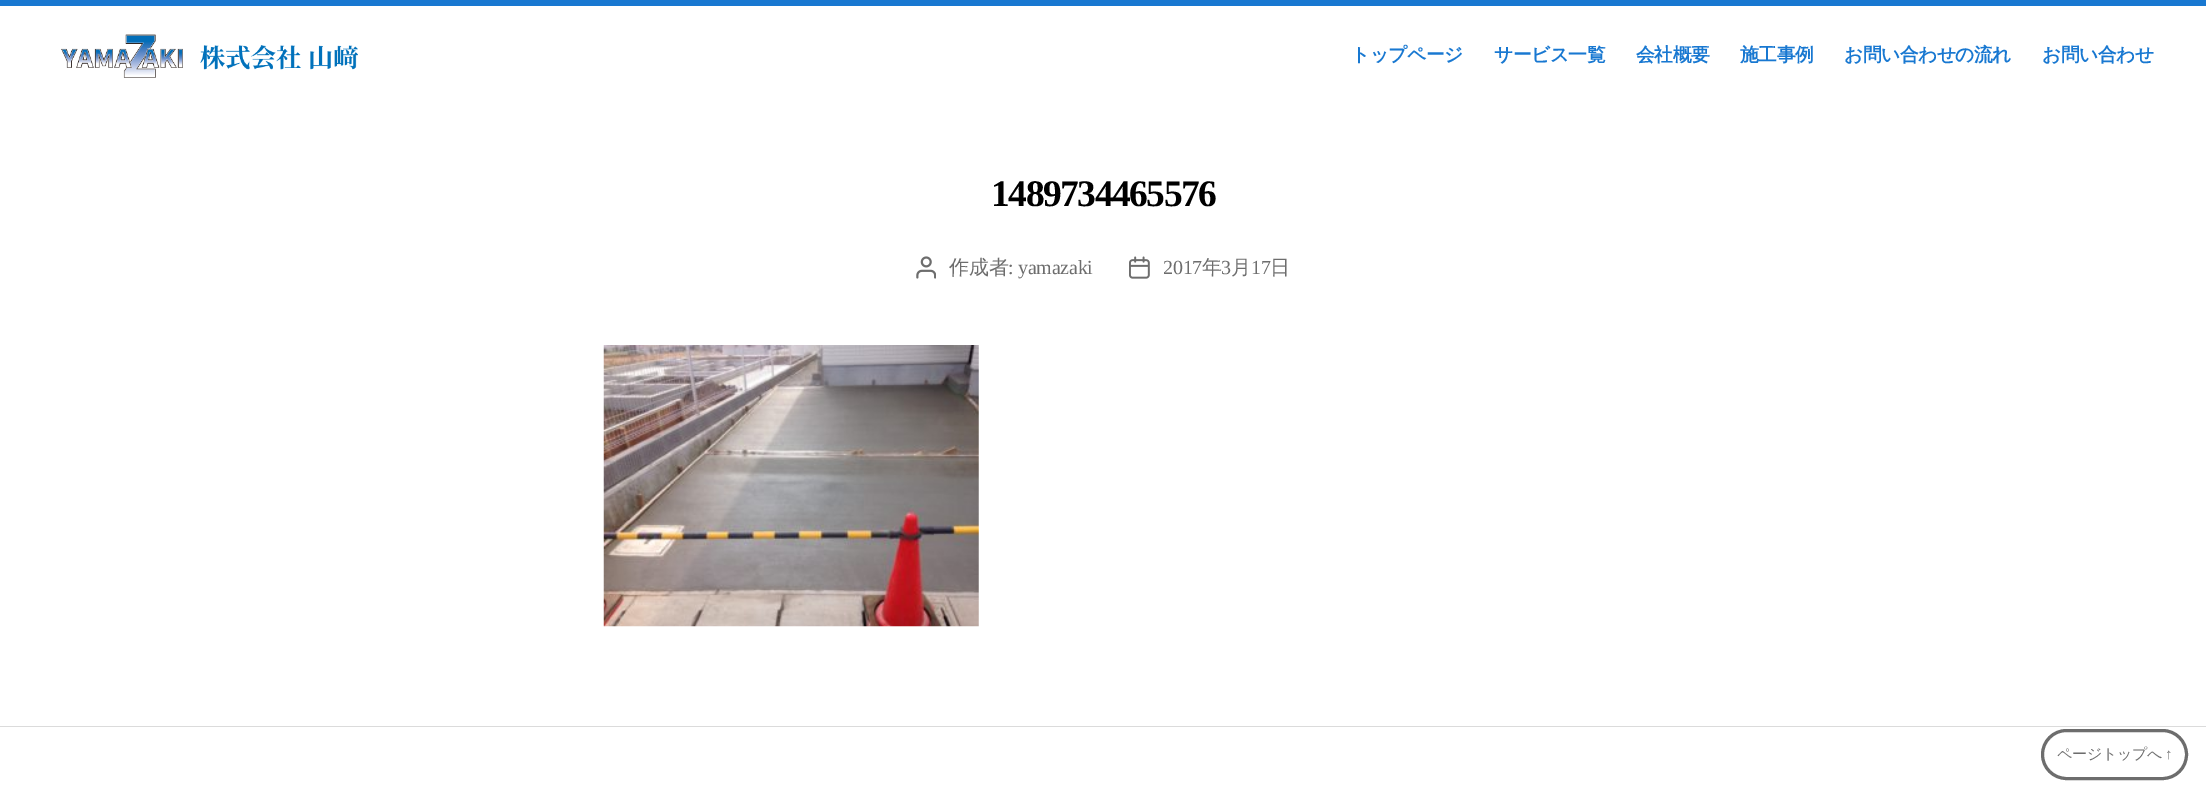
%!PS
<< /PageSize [2206 789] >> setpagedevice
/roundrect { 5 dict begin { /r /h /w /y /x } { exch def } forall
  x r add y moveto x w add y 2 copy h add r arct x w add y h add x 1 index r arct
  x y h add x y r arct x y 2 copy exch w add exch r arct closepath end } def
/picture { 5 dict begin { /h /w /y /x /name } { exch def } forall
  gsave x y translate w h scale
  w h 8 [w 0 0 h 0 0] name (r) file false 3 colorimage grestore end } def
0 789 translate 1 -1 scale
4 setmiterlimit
1 setgray
0 0 2206 789 rectfill
0.094 0.471 0.82 setrgbcolor
0 0 2206 6 rectfill
(img1.rgb) 61 34 297 44 picture
/WenQuanYiZenHei-Bold [18.75 0 0 -18.75 0 0] selectfont
1351 61 moveto -0.5 0 (トップページ) ashow
1494 61 moveto -0.5 0 (サービス一覧) ashow
1636 61 moveto -0.5 0 (会社概要) ashow
1740 61 moveto -0.5 0 (施工事例) ashow
1844 61 moveto -0.5 0 (お問い合わせの流れ) ashow
2042 61 moveto -0.5 0 (お問い合わせ) ashow
/LiberationSerif-Bold [37.5 0 0 -37.5 0 0] selectfont
0 setgray
991 206 moveto -1.5 0 (1489734465576) ashow
(img2.rgb) 916 256 20 23 picture
/WenQuanYiZenHei-Medium [20 0 0 -20 0 0] selectfont
0.427 setgray
949 274 moveto -0.25 0 (作成者) ashow
/LiberationSerif-Regular [20 0 0 -20 0 0] selectfont
1008 274 moveto -0.25 0 (: yamazaki) ashow
(img3.rgb) 1129 256 21 23 picture
1163 274 moveto -0.25 0 (2017) ashow
/WenQuanYiZenHei-Medium [20 0 0 -20 0 0] selectfont
1202 274 moveto -0.25 0 (年) ashow
/LiberationSerif-Regular [20 0 0 -20 0 0] selectfont
1221 274 moveto -0.25 0 (3) ashow
/WenQuanYiZenHei-Medium [20 0 0 -20 0 0] selectfont
1231 274 moveto -0.25 0 (月) ashow
/LiberationSerif-Regular [20 0 0 -20 0 0] selectfont
1251 274 moveto -0.25 0 (17) ashow
/WenQuanYiZenHei-Medium [20 0 0 -20 0 0] selectfont
1270 274 moveto -0.25 0 (日) ashow
(img4.rgb) 603 345 376 282 picture
0.859 setgray
0 726 2206 1 rectfill
0.427 setgray
3 setlinewidth
2042.5 730.5 144 48 24 roundrect stroke
/WenQuanYiZenHei-Medium [15 0 0 -15 0 0] selectfont
2057 759 moveto -0.25 0 (ページトップへ) ashow
/LiberationSerif-Regular [15 0 0 -15 0 0] selectfont
2165 759 moveto -0.25 0 (↑) ashow
showpage
